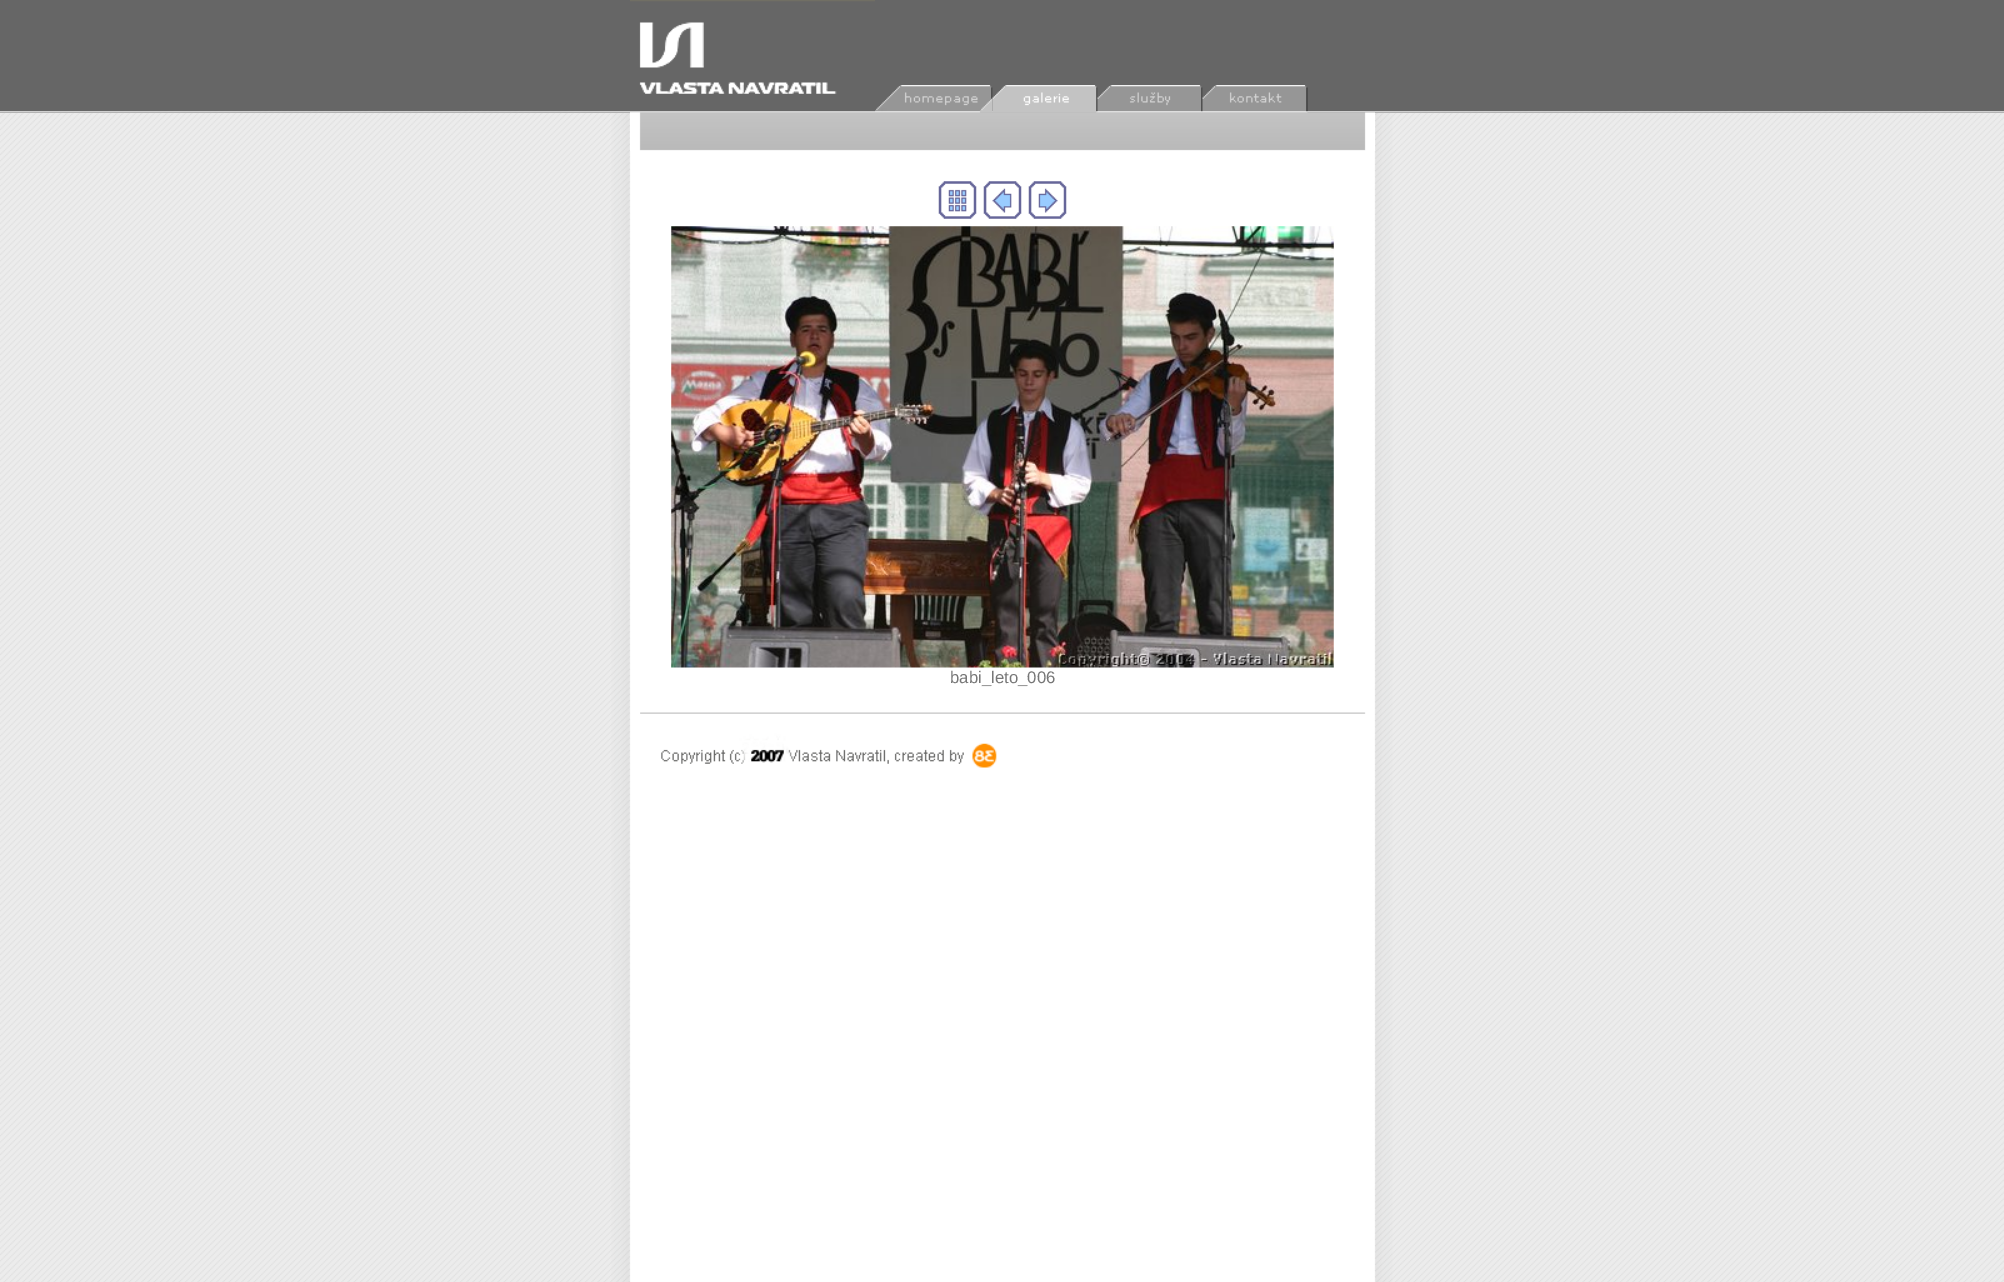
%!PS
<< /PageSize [2004 1282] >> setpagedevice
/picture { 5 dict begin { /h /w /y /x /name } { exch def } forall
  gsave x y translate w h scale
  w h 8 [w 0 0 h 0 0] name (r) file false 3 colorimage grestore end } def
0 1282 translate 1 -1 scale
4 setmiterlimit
1 setgray
0 0 2004 1282 rectfill
(img1.rgb) 0 113 2004 1169 picture
0.4 setgray
0 0 2004 113 rectfill
(img2.rgb) 0 111 2004 2 picture
(img3.rgb) 630 0 245 113 picture
(img4.rgb) 875 85 118 28 picture
(img5.rgb) 992 85 106 28 picture
(img6.rgb) 1097 85 106 28 picture
(img7.rgb) 1202 85 106 28 picture
(img8.rgb) 630 112 745 39 picture
(img9.rgb) 938 181 39 38 picture
(img10.rgb) 983 181 39 38 picture
(img11.rgb) 1028 181 39 38 picture
(img12.rgb) 671 226 663 442 picture
/LiberationSans-Regular [16.75 0 0 -16.75 0 0] selectfont
0.467 setgray
950 683 moveto (babi_leto_006) show
(img13.rgb) 640 686 726 82 picture
showpage
